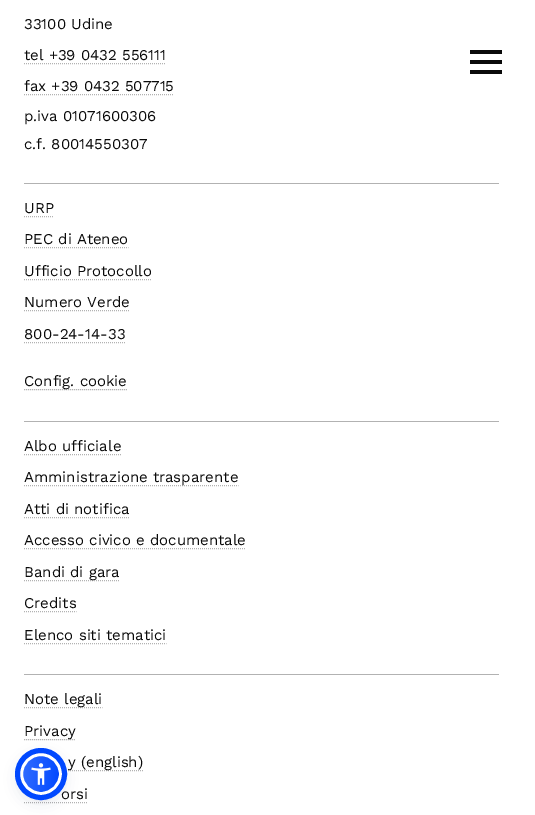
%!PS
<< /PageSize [535 815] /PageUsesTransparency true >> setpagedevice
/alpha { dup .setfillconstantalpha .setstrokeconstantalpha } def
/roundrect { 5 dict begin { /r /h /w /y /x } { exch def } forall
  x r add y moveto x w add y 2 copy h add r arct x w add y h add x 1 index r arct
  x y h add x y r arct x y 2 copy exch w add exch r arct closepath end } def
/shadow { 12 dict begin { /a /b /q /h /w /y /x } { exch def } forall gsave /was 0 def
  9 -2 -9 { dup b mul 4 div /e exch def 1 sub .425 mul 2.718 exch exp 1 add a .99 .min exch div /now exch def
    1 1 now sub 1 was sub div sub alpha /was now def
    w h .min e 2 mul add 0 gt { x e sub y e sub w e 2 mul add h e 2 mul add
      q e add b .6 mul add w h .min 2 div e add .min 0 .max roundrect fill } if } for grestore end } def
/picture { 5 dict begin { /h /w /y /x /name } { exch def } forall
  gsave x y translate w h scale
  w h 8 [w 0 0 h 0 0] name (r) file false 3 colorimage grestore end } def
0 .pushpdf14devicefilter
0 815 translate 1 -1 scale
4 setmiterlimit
1 setgray
0 0 535 815 rectfill
/WorkSans-Regular [15 0 0 -15 0 0] selectfont
0.039 setgray
24 29 moveto (33100 Udine) show
24 60 moveto (tel +39 0432 556111) show
0.698 setgray
[1 1] 0 setdash
newpath 24 63.5 moveto 166 63.5 lineto stroke
0.039 setgray
24 91 moveto (fax +39 0432 507715) show
0.698 setgray
newpath 24 94.5 moveto 174 94.5 lineto stroke
0.039 setgray
24 121 moveto (p.iva 01071600306) show
24 149 moveto (c.f. 80014550307) show
0.698 setgray
24 183 475 1 rectfill
0.039 setgray
24 213 moveto (URP) show
0.698 setgray
newpath 24 216.5 moveto 54 216.5 lineto stroke
0.039 setgray
24 244 moveto (PEC di Ateneo) show
0.698 setgray
newpath 24 247.5 moveto 128.5 247.5 lineto stroke
0.039 setgray
24 276 moveto (Ufficio Protocollo) show
0.698 setgray
newpath 24 279.5 moveto 152 279.5 lineto stroke
0.039 setgray
24 307 moveto (Numero Verde) show
0.698 setgray
newpath 24 310.5 moveto 130 310.5 lineto stroke
0.039 setgray
24 339 moveto (800-24-14-33) show
0.698 setgray
newpath 24 342.5 moveto 125.5 342.5 lineto stroke
newpath 24 389.5 moveto 127 389.5 lineto stroke
0.039 setgray
24 386 moveto (Config. cookie) show
0.698 setgray
24 421 475 1 rectfill
0.039 setgray
24 451 moveto (Albo ufficiale) show
0.698 setgray
newpath 24 454.5 moveto 121 454.5 lineto stroke
newpath 24 485.5 moveto 238.5 485.5 lineto stroke
0.039 setgray
24 482 moveto (Amministrazione trasparente) show
24 514 moveto (Atti di notifica) show
0.698 setgray
newpath 24 517.5 moveto 129.5 517.5 lineto stroke
0.039 setgray
24 545 moveto (Accesso civico e documentale) show
0.698 setgray
newpath 24 548.5 moveto 246 548.5 lineto stroke
newpath 24 580.5 moveto 119.5 580.5 lineto stroke
0.039 setgray
24 577 moveto (Bandi di gara) show
24 608 moveto (Credits) show
0.698 setgray
newpath 24 611.5 moveto 76.5 611.5 lineto stroke
0.039 setgray
24 640 moveto (Elenco siti tematici) show
0.698 setgray
newpath 24 643.5 moveto 166.5 643.5 lineto stroke
24 674 475 1 rectfill
newpath 24 707.5 moveto 102.5 707.5 lineto stroke
0.039 setgray
24 704 moveto (Note legali) show
0.698 setgray
newpath 24 739.5 moveto 75.5 739.5 lineto stroke
0.039 setgray
24 736 moveto (Privacy) show
0.698 setgray
newpath 24 770.5 moveto 143 770.5 lineto stroke
0.039 setgray
68 767 moveto (y \(english\)) show
61 799 moveto (orsi) show
0.698 setgray
newpath 24 802.5 moveto 88 802.5 lineto stroke
0.039 setgray
470 50 32 4 rectfill
470 60 32 4 rectfill
470 70 32 4 rectfill
0.365 0.392 0.58 setrgbcolor
20 755 42 42 21 2 0.2 shadow
0.145 0.173 0.38 setrgbcolor
20 758 42 42 21 7.5 0.15 shadow
gsave
20 753 42 42 21 roundrect clip newpath
gsave newpath 23 756 moveto 59 756 lineto 59 792 lineto 23 792 lineto closepath clip newpath
<< /ShadingType 2 /ColorSpace /DeviceRGB /Coords [21 772 61 776] /Extend [true true] /Function << /FunctionType 2 /Domain [0 1] /C0 [0.196 0.424 1] /C1 [0 0.282 1] /N 1 >> >> shfill grestore
grestore
1 setgray
3 setlinewidth
[] 0 setdash
newpath 41 774 19.5 0 360 arc closepath stroke
0 0.282 1 setrgbcolor
5 setlinewidth
newpath 41 774 23.5 0 360 arc closepath stroke
(img1.rgb) 31 763 20 22 picture
.poppdf14devicefilter showpage
